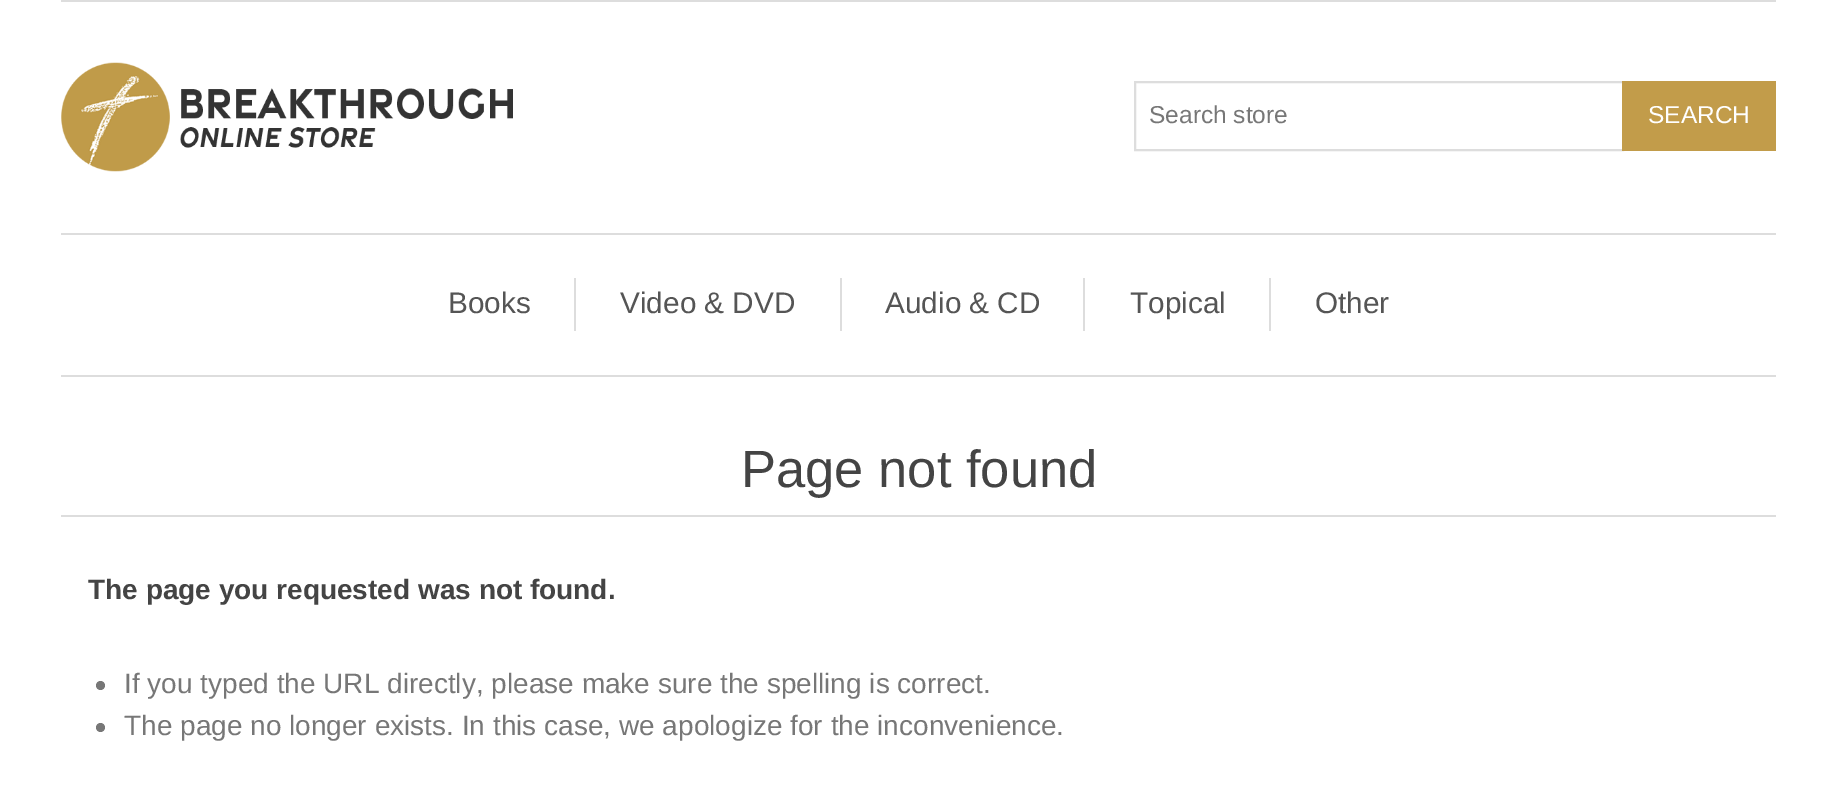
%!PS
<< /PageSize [1836 789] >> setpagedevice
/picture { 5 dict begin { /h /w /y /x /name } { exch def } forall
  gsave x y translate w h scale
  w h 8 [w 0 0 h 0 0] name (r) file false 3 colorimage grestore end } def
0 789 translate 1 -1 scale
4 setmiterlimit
1 setgray
0 0 1836 789 rectfill
0.867 setgray
61 0 1715 2 rectfill
(img1.rgb) 61 62 452 110 picture
2 setlinewidth
1135 82 488 68 rectstroke
/LiberationSans-Regular [24.5 0 0 -24.5 0 0] selectfont
0.467 setgray
1149 123 moveto (Search store) show
0.761 0.612 0.29 setrgbcolor
1622 81 154 70 rectfill
1 setgray
1648 123 moveto (SEARCH) show
0.867 setgray
61 233 1715 2 rectfill
61 375 1715 2 rectfill
/LiberationSans-Regular [29.75 0 0 -29.75 0 0] selectfont
0.333 setgray
448 313 moveto (Books) show
0.867 setgray
574 278 2 53 rectfill
0.333 setgray
620 313 moveto (Video & DVD) show
0.867 setgray
840 278 2 53 rectfill
0.333 setgray
885 313 moveto (Audio & CD) show
0.867 setgray
1083 278 2 53 rectfill
0.333 setgray
1130 313 moveto (Topical) show
0.867 setgray
1269 278 2 53 rectfill
0.333 setgray
1315 313 moveto (Other) show
0.867 setgray
61 515 1715 2 rectfill
/LiberationSans-Regular [52.5 0 0 -52.5 0 0] selectfont
0.267 setgray
741 487 moveto (Page not found) show
/LiberationSans-Bold [28 0 0 -28 0 0] selectfont
88 599 moveto (The page you requested was not found.) show
0.467 setgray
newpath 100.5 685.5 4.5 0 360 arc closepath fill
/LiberationSans-Regular [28 0 0 -28 0 0] selectfont
124 693 moveto (If you typed the URL directly, please make sure the spelling is correct.) show
newpath 100.5 727.5 4.5 0 360 arc closepath fill
124 735 moveto (The page no longer exists. In this case, we apologize for the inconvenience.) show
showpage
